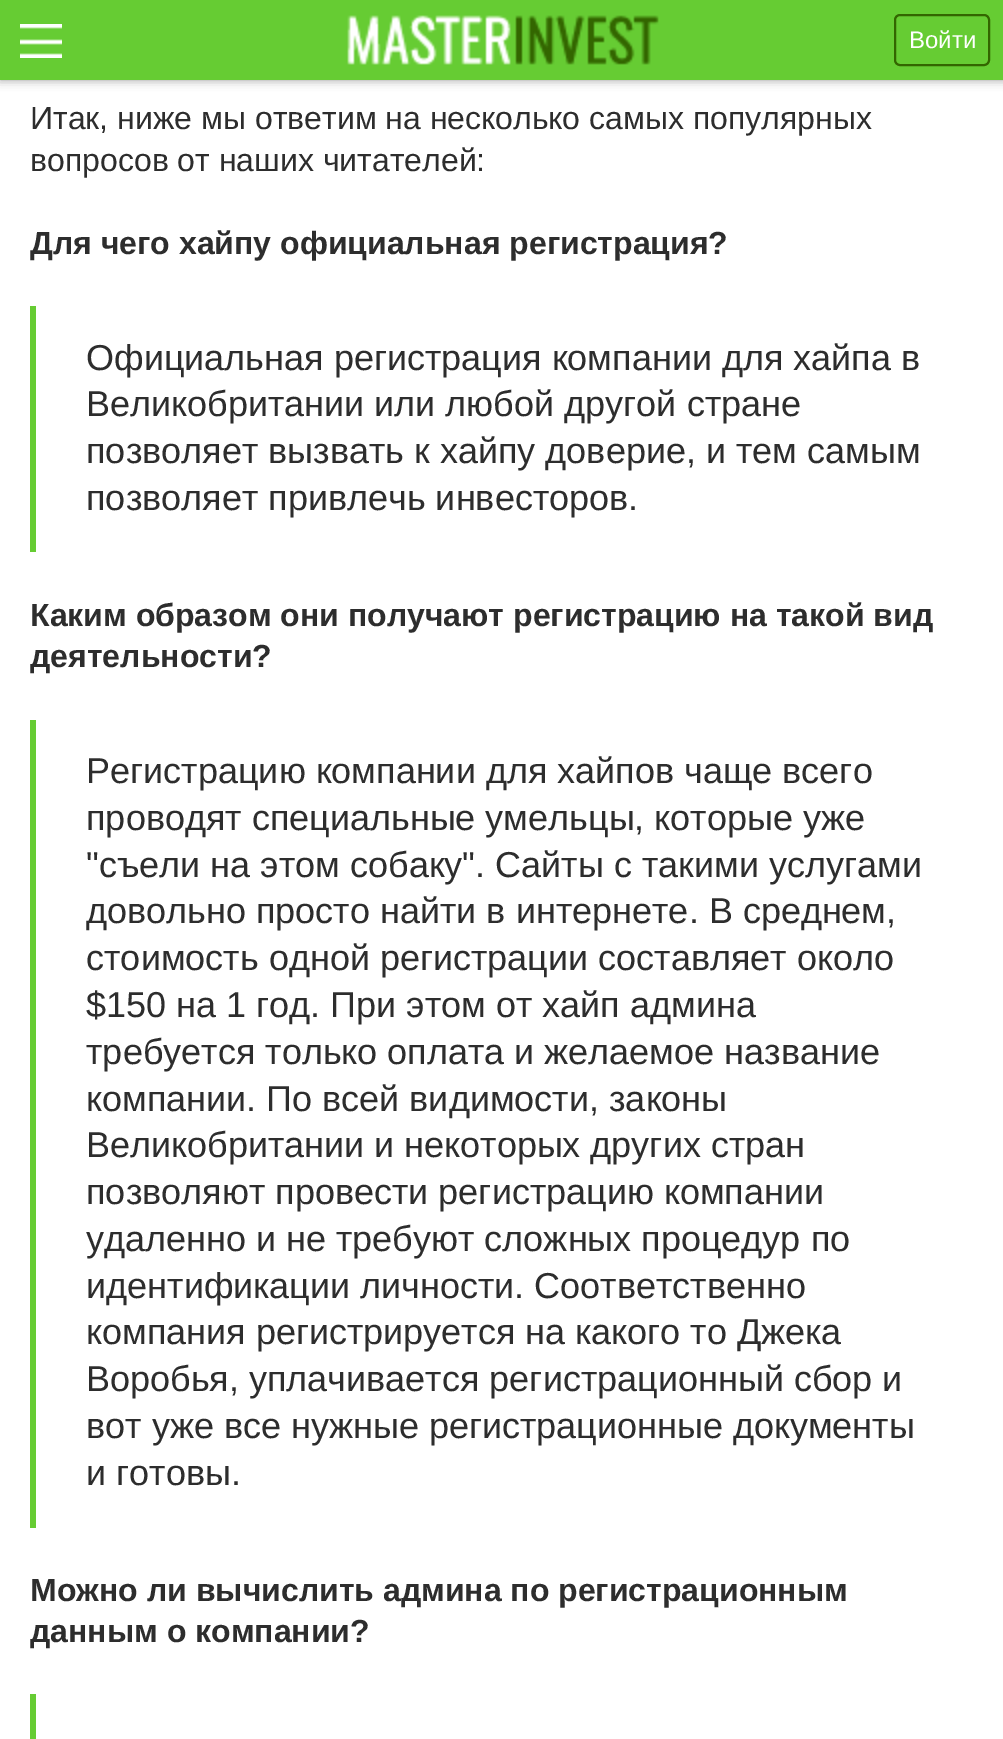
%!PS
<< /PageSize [1003 1739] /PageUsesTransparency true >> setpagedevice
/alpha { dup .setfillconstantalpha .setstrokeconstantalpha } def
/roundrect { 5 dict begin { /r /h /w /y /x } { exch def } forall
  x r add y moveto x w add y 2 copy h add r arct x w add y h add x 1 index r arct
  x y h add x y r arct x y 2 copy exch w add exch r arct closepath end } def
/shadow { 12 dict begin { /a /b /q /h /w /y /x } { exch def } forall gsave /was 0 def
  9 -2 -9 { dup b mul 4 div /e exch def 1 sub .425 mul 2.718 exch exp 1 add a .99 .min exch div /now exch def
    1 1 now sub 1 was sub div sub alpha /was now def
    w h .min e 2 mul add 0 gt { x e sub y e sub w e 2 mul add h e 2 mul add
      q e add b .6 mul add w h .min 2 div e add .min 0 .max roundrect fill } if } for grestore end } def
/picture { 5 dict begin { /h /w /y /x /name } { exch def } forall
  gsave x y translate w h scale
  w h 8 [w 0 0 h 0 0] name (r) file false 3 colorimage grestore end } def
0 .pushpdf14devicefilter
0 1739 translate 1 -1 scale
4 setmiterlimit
1 setgray
0 0 1003 1739 rectfill
0.6 setgray
0 0 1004 80 0 5 1 shadow
0.4 0.8 0.2 setrgbcolor
0 0 1003 80 rectfill
(img1.rgb) 20 24 42 34 picture
(img2.rgb) 347 15 312 50 picture
0.2 0.4 0 setrgbcolor
2 setlinewidth
895 15 94 50 5 roundrect stroke
/LiberationSans-Regular [24 0 0 -24 0 0] selectfont
1 setgray
909 48 moveto (Войти) show
/LiberationSans-Regular [32 0 0 -32 0 0] selectfont
0.176 setgray
30 129 moveto (Итак, ниже мы ответим на несколько самых популярных) show
30 171 moveto (вопросов от наших читателей:) show
/LiberationSans-Bold [32 0 0 -32 0 0] selectfont
30 254 moveto (Для чего хайпу официальная регистрация?) show
0.4 0.8 0.2 setrgbcolor
30 306 6 246 rectfill
/LiberationSans-Regular [36 0 0 -36 0 0] selectfont
0.176 setgray
86 370 moveto (Официальная регистрация компании для хайпа в) show
86 416 moveto (Великобритании или любой другой стране) show
86 463 moveto (позволяет вызвать к хайпу доверие, и тем самым) show
86 510 moveto (позволяет привлечь инвесторов.) show
/LiberationSans-Bold [32 0 0 -32 0 0] selectfont
30 626 moveto (Каким образом они получают регистрацию на такой вид) show
30 667 moveto (деятельности?) show
0.4 0.8 0.2 setrgbcolor
30 720 6 808 rectfill
/LiberationSans-Regular [36 0 0 -36 0 0] selectfont
0.176 setgray
86 783 moveto (Регистрацию компании для хайпов чаще всего) show
86 830 moveto (проводят специальные умельцы, которые уже) show
86 877 moveto ("съели на этом собаку". Сайты с такими услугами) show
86 923 moveto (довольно просто найти в интернете. В среднем,) show
86 970 moveto (стоимость одной регистрации составляет около) show
86 1017 moveto ($150 на 1 год. При этом от хайп админа) show
86 1064 moveto (требуется только оплата и желаемое название) show
86 1111 moveto (компании. По всей видимости, законы) show
86 1157 moveto (Великобритании и некоторых других стран) show
86 1204 moveto (позволяют провести регистрацию компании) show
86 1251 moveto (удаленно и не требуют сложных процедур по) show
86 1298 moveto (идентификации личности. Соответственно) show
86 1344 moveto (компания регистрируется на какого то Джека) show
86 1391 moveto (Воробья, уплачивается регистрационный сбор и) show
86 1438 moveto (вот уже все нужные регистрационные документы) show
86 1485 moveto (и готовы.) show
/LiberationSans-Bold [32 0 0 -32 0 0] selectfont
30 1601 moveto (Можно ли вычислить админа по регистрационным) show
30 1642 moveto (данным о компании?) show
0.4 0.8 0.2 setrgbcolor
30 1694 6 45 rectfill
.poppdf14devicefilter showpage
